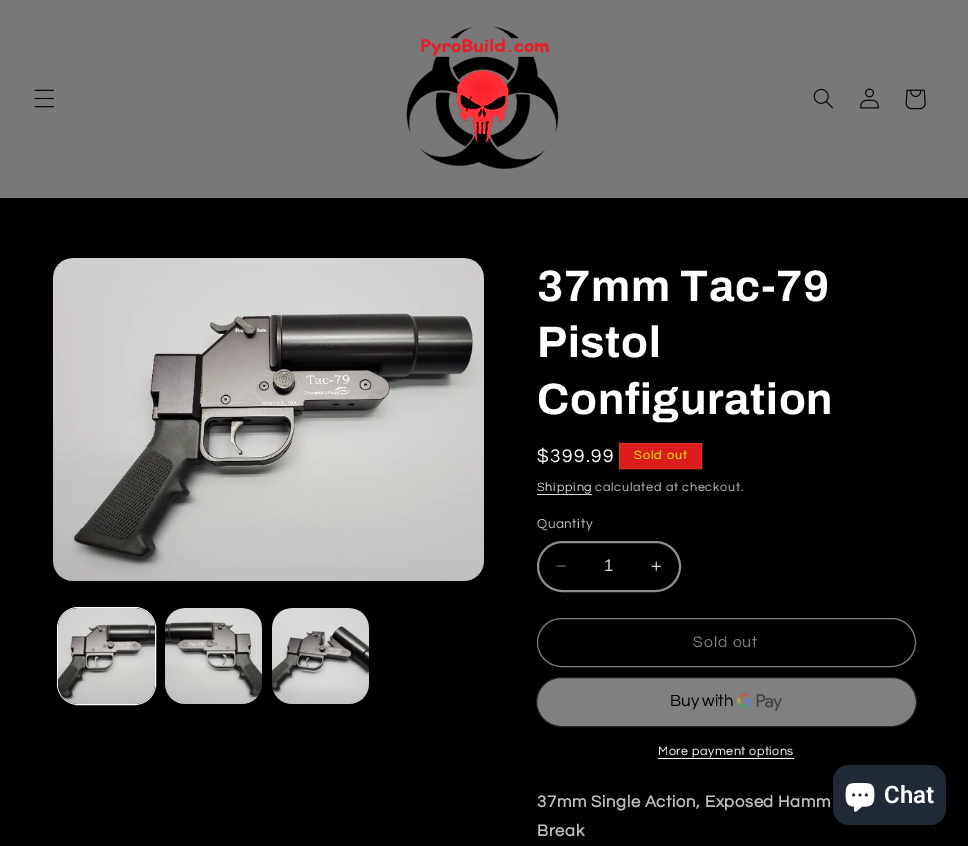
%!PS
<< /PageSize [968 846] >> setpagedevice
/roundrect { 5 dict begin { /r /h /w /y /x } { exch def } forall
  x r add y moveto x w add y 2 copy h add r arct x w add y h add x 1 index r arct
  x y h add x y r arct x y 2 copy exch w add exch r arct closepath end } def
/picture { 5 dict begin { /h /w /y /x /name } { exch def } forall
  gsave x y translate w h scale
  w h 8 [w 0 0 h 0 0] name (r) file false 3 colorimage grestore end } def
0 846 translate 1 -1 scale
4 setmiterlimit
0 setgray
0 0 968 846 rectfill
0.475 0.467 0.467 setrgbcolor
0 0 968 198 rectfill
(img1.rgb) 34 89 20 19 picture
(img2.rgb) 406 26 153 143 picture
(img3.rgb) 813 88 20 21 picture
(img4.rgb) 860 88 19 21 picture
(img5.rgb) 905 89 21 21 picture
(img6.rgb) 53 258 431 323 picture
1 setgray
57.5 607.5 98 97 20.5 roundrect stroke
(img7.rgb) 58 608 97 96 picture
(img8.rgb) 165 608 97 96 picture
(img9.rgb) 272 608 97 96 picture
/Archivo-Bold [44 0 0 -44 0 0] selectfont
537 301 moveto 0.7 0 (37mm Tac-79) ashow
537 357 moveto 0.7 0 (Pistol) ashow
537 414 moveto 0.7 0 (Configuration) ashow
/Questrial-Regular [19 0 0 -19 0 0] selectfont
537 462 moveto 1.5 0 ($399.99) ashow
0.867 0.114 0.114 setrgbcolor
newpath 619.5 443.5 moveto 701.5 443.5 lineto 701.5 468.5 lineto 619.5 468.5 lineto closepath gsave fill grestore
0.867 0.204 0.106 setrgbcolor
stroke
/Questrial-Regular [12.6 0 0 -12.6 0 0] selectfont
0.875 1 0.055 setrgbcolor
634 459 moveto 1 0 (Sold out) ashow
0.851 setgray
537 491 moveto 0.75 0 (Shipping) ashow
537 494 55 1 rectfill
0.749 setgray
595 491 moveto 0.75 0 (calculated at checkout.) ashow
/Questrial-Regular [13.5 0 0 -13.5 0 0] selectfont
537 528 moveto 0.5 0 (Quantity) ashow
(img10.rgb) 556 565 10 2 picture
(img11.rgb) 651 561 10 10 picture
0.549 setgray
2 setlinewidth
538 542 142 49 24.5 roundrect stroke
/LiberationSans-Regular [16.75 0 0 -16.75 0 0] selectfont
0.851 setgray
604 571 moveto (1) show
0.502 setgray
1 setlinewidth
537.5 618.5 378 48 24 roundrect stroke
/Questrial-Regular [15.75 0 0 -15.75 0 0] selectfont
693 647 moveto 1 0 (Sold out) ashow
537 678 379 48 24 roundrect fill
0.118 0.125 0.133 setrgbcolor
536.5 677.5 380 49 24.5 roundrect stroke
/Questrial-Regular [16.75 0 0 -16.75 0 0] selectfont
0 setgray
670 706 moveto (Buy with) show
(img12.rgb) 737 693 45 18 picture
/Questrial-Regular [12.6 0 0 -12.6 0 0] selectfont
1 setgray
658 755 moveto 0.5 0 (More payment options) ashow
658 758 136 1 rectfill
/Questrial-Bold [16.75 0 0 -16.75 0 0] selectfont
0.749 setgray
537 807 moveto 0.6 0 (37mm Single Action, Exposed Hamm) ashow
537 836 moveto 0.6 0 (Break) ashow
0.125 0.165 0.212 setrgbcolor
833 765 113 60 16 roundrect fill
(img13.rgb) 845 783 30 29 picture
/Roboto-SemiBold [24 0 0 -24 0 0] selectfont
1 setgray
884 803 moveto (Chat) show
showpage
